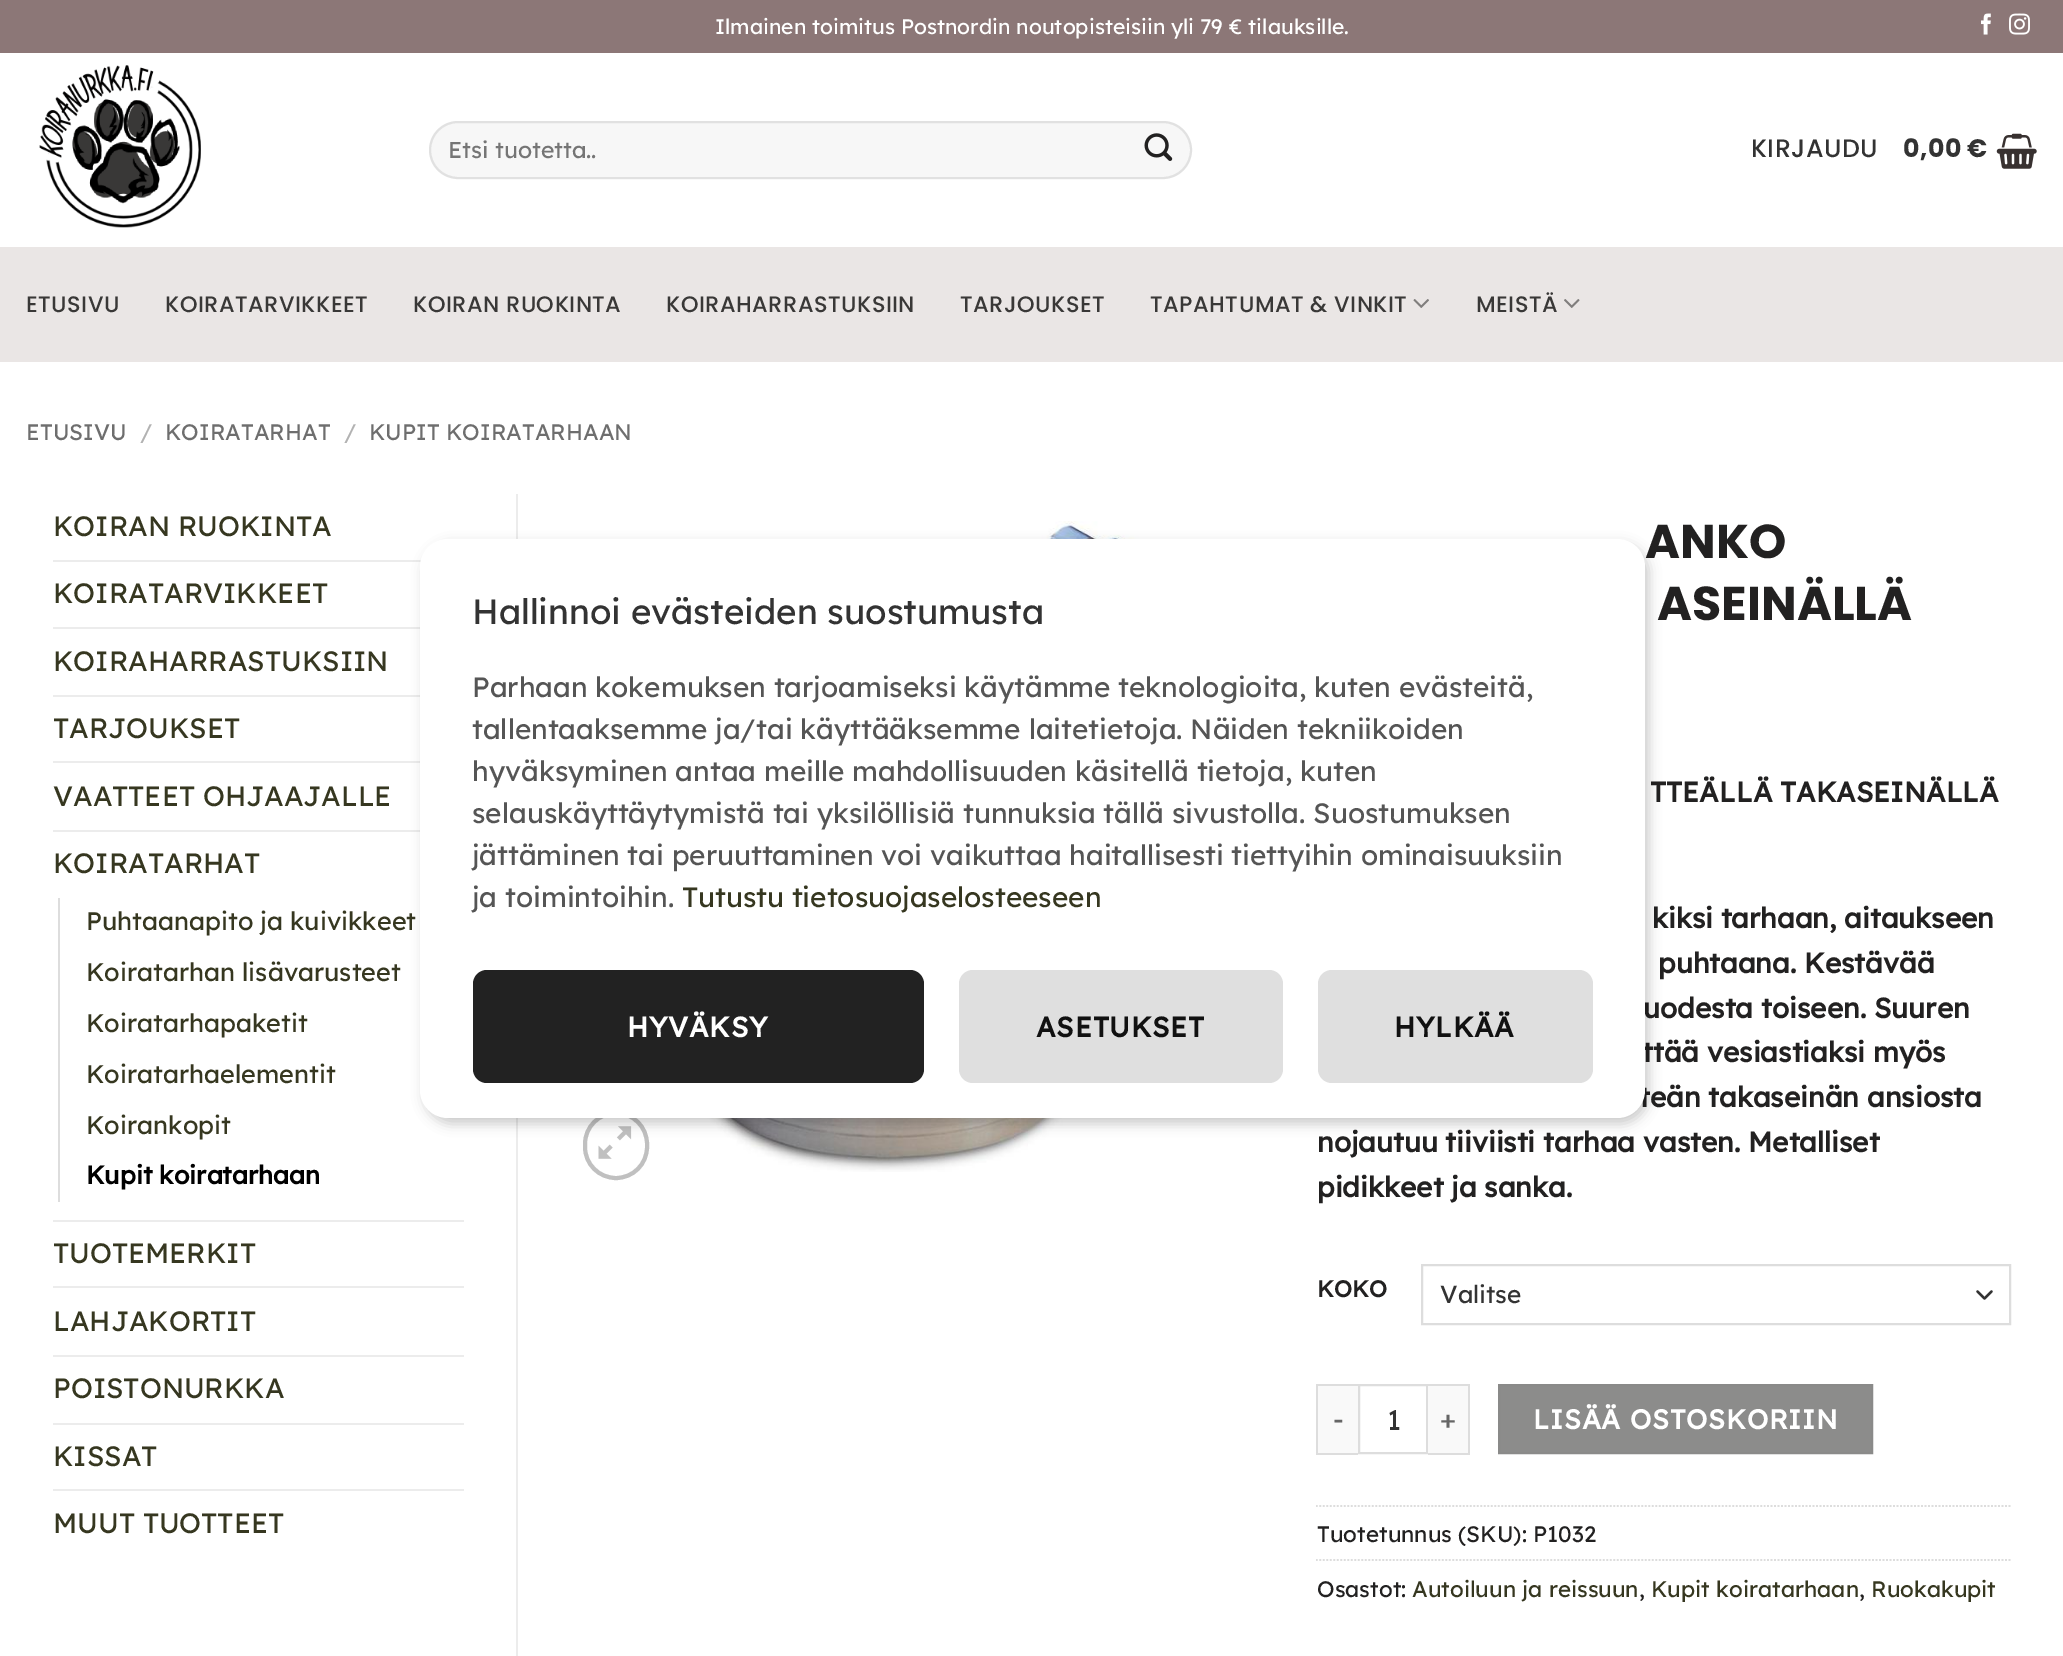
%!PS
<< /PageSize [2063 1656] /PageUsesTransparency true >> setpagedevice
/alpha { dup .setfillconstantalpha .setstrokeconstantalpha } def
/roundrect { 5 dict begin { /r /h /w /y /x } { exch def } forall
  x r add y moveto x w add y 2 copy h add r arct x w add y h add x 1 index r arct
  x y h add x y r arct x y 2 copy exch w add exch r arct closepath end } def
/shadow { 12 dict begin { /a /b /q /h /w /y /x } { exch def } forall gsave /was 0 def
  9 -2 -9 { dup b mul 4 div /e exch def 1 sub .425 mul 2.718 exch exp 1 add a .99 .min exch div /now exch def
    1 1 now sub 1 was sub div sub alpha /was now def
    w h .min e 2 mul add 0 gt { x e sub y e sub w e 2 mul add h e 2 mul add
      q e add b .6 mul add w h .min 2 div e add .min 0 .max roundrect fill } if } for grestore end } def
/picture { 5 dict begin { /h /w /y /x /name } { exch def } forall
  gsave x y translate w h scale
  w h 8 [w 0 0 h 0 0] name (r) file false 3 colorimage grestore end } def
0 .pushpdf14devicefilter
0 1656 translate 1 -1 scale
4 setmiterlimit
1 setgray
0 0 2063 1656 rectfill
0.549 0.467 0.467 setrgbcolor
0 0 2063 53 rectfill
/LexendDeca-Regular [21 0 0 -21 0 0] selectfont
1 setgray
715 34 moveto (Ilmainen toimitus Postnordin noutopisteisiin yli 79 € tilauksille.) show
(img1.rgb) 1981 13 10 22 picture
(img2.rgb) 2009 13 21 22 picture
(img3.rgb) 39 65 162 163 picture
0.969 setgray
429 121 763 58 29 roundrect fill
0.09 alpha
0 setgray
2 setlinewidth
430 122 761 56 28 roundrect stroke
/LexendDeca-Regular [23 0 0 -23 0 0] selectfont
1 alpha
0.459 setgray
448 158 moveto (Etsi tuotetta..) show
(img4.rgb) 1144 133 29 28 picture
/Poppins-Medium [25.25 0 0 -25.25 0 0] selectfont
0.2 setgray
1751 157 moveto 0.5 0 (KIRJAUDU) ashow
/Poppins-Bold [25.25 0 0 -25.25 0 0] selectfont
1903 157 moveto 0.5 0 (0,00 €) ashow
(img5.rgb) 1996 133 41 36 picture
0.918 0.902 0.898 setrgbcolor
0 247 2063 115 rectfill
/Poppins-Medium [22.4 0 0 -22.4 0 0] selectfont
0.224 0.22 0.216 setrgbcolor
26 312 moveto 0.5 0 (ETUSIVU) ashow
165 312 moveto 0.5 0 (KOIRATARVIKKEET) ashow
413 312 moveto 0.5 0 (KOIRAN RUOKINTA) ashow
666 312 moveto 0.5 0 (KOIRAHARRASTUKSIIN) ashow
960 312 moveto 0.5 0 (TARJOUKSET) ashow
1150 312 moveto 0.5 0 (TAPAHTUMAT & VINKIT) ashow
(img6.rgb) 1413 299 16 9 picture
1476 312 moveto 0.5 0 (MEISTÄ) ashow
(img7.rgb) 1564 299 16 9 picture
/LexendDeca-Regular [22.4 0 0 -22.4 0 0] selectfont
0.431 setgray
26 440 moveto (ETUSIVU) show
0.698 setgray
140 440 moveto (/) show
0.431 setgray
165 440 moveto (KOIRATARHAT) show
0.698 setgray
344 440 moveto (/) show
0.431 setgray
369 440 moveto (KUPIT KOIRATARHAAN) show
/LexendDeca-Regular [28 0 0 -28 0 0] selectfont
0.212 0.216 0.125 setrgbcolor
53 536 moveto (KOIRAN RUOKINTA) show
0.925 setgray
53 560 368 2 rectfill
0.212 0.216 0.125 setrgbcolor
53 603 moveto (KOIRATARVIKKEET) show
0.925 setgray
53 627 367 2 rectfill
0.212 0.216 0.125 setrgbcolor
53 671 moveto (KOIRAHARRASTUKSIIN) show
0.925 setgray
53 695 367 2 rectfill
0.212 0.216 0.125 setrgbcolor
53 738 moveto (TARJOUKSET) show
0.925 setgray
53 761 367 2 rectfill
0.212 0.216 0.125 setrgbcolor
53 806 moveto (VAATTEET OHJAAJALLE) show
0.925 setgray
53 830 367 2 rectfill
0.212 0.216 0.125 setrgbcolor
53 873 moveto (KOIRATARHAT) show
0.867 setgray
58 898 2 304 rectfill
/LexendDeca-Regular [25.25 0 0 -25.25 0 0] selectfont
0.212 0.216 0.125 setrgbcolor
86 930 moveto (Puhtaanapito ja kuivikkeet) show
86 981 moveto (Koiratarhan lisävarusteet) show
86 1032 moveto (Koiratarhapaketit) show
86 1083 moveto (Koiratarhaelementit) show
86 1134 moveto (Koirankopit) show
/LexendDeca-Bold [25.25 0 0 -25.25 0 0] selectfont
0 setgray
86 1184 moveto (Kupit koiratarhaan) show
0.925 setgray
53 1220 411 2 rectfill
/LexendDeca-Regular [28 0 0 -28 0 0] selectfont
0.212 0.216 0.125 setrgbcolor
53 1263 moveto (TUOTEMERKIT) show
0.925 setgray
53 1286 411 2 rectfill
0.212 0.216 0.125 setrgbcolor
53 1331 moveto (LAHJAKORTIT) show
0.925 setgray
53 1355 411 2 rectfill
0.212 0.216 0.125 setrgbcolor
53 1398 moveto (POISTONURKKA) show
0.925 setgray
53 1423 411 2 rectfill
0.212 0.216 0.125 setrgbcolor
53 1466 moveto (KISSAT) show
0.925 setgray
53 1489 411 2 rectfill
0.212 0.216 0.125 setrgbcolor
53 1533 moveto (MUUT TUOTTEET) show
0.925 setgray
516 494 2 1162 rectfill
(img9.rgb) 626 521 540 651 picture
0.753 setgray
4 setlinewidth
585 1113 62 65 31 roundrect stroke
(img8.rgb) 598 1126 34 33 picture
/Poppins-Bold [47.5 0 0 -47.5 0 0] selectfont
0.133 0.129 0.129 setrgbcolor
1645 558 moveto (ANKO) show
1657 620 moveto (ASEINÄLLÄ) show
/LexendDeca-Bold [28 0 0 -28 0 0] selectfont
1650 802 moveto (TTEÄLLÄ TAKASEINÄLLÄ) show
1652 928 moveto (kiksi tarhaan, aitaukseen) show
1658 973 moveto (puhtaana. Kestävää) show
1643 1018 moveto (uodesta toiseen. Suuren) show
1642 1062 moveto (ttää vesiastiaksi myös) show
1639 1107 moveto (teän takaseinän ansiosta) show
1317 1152 moveto (nojautuu tiiviisti tarhaa vasten. Metalliset) show
1317 1197 moveto (pidikkeet ja sanka.) show
/LexendDeca-Bold [23 0 0 -23 0 0] selectfont
1317 1297 moveto (KOKO) show
0.2 setgray
2.3 setlinewidth
1 setlinecap
1 setlinejoin
newpath 1977.5 1291.5 moveto 1984.5 1298.5 lineto 1991.5 1291.5 lineto stroke
0.867 setgray
2 setlinewidth
0 setlinecap
0 setlinejoin
1422 1265 588 59 rectstroke
/LexendDeca-Regular [24.5 0 0 -24.5 0 0] selectfont
0.2 setgray
1440 1303 moveto (Valitse) show
0.976 setgray
1318 1386 40 67 rectfill
0.867 setgray
1316 1384 42 2 rectfill
1316 1453 42 2 rectfill
1316 1384 2 70 rectfill
/LexendDeca-Regular [27.2 0 0 -27.2 0 0] selectfont
0.4 setgray
1333 1429 moveto 0.8 0 (-) ashow
0.867 setgray
1359 1385 68 68 rectstroke
/LexendDeca-Regular [28 0 0 -28 0 0] selectfont
0.2 setgray
1387 1430 moveto (1) show
0.976 setgray
1428 1386 40 67 rectfill
0.867 setgray
1428 1384 42 2 rectfill
1468 1384 2 70 rectfill
1428 1453 42 2 rectfill
/LexendDeca-Regular [27.2 0 0 -27.2 0 0] selectfont
0.4 setgray
1440 1429 moveto 0.8 0 (+) ashow
0.549 0.549 0.545 setrgbcolor
newpath 1499 1385 moveto 1872 1385 lineto 1872 1453 lineto 1499 1453 lineto closepath gsave fill grestore
0.541 0.541 0.537 setrgbcolor
stroke
/LexendDeca-Bold [27.2 0 0 -27.2 0 0] selectfont
1 setgray
1533 1429 moveto 0.8 0 (LISÄÄ OSTOSKORIIN) ashow
0.867 setgray
1.8 setlinewidth
[1.75 1.75] 0 setdash
newpath 1316 1506 moveto 2011 1506 lineto stroke
/LexendDeca-Regular [22.4 0 0 -22.4 0 0] selectfont
0.133 0.129 0.129 setrgbcolor
1317 1542 moveto (Tuotetunnus \(SKU\): P1032) show
0.867 setgray
newpath 1316 1560 moveto 2011 1560 lineto stroke
0.133 0.129 0.129 setrgbcolor
1317 1597 moveto (Osastot:) show
0.212 0.216 0.125 setrgbcolor
1412 1597 moveto (Autoiluun ja reissuun) show
0.133 0.129 0.129 setrgbcolor
1639 1597 moveto (,) show
0.212 0.216 0.125 setrgbcolor
1651 1597 moveto (Kupit koiratarhaan) show
0.133 0.129 0.129 setrgbcolor
1859 1597 moveto (,) show
0.212 0.216 0.125 setrgbcolor
1871 1597 moveto (Ruokakupit) show
0 setgray
424 544 1225 580 28 6 0.2 shadow
1 setgray
420 539 1225 579 28 roundrect fill
/LexendDeca-Regular [35 0 0 -35 0 0] selectfont
0.2 setgray
472 624 moveto (Hallinnoi evästeiden suostumusta) show
/LexendDeca-Regular [28 0 0 -28 0 0] selectfont
0.333 setgray
472 697 moveto (Parhaan kokemuksen tarjoamiseksi käytämme teknologioita, kuten evästeitä,) show
472 739 moveto (tallentaaksemme ja/tai käyttääksemme laitetietoja. Näiden tekniikoiden) show
472 781 moveto (hyväksyminen antaa meille mahdollisuuden käsitellä tietoja, kuten) show
472 823 moveto (selauskäyttäytymistä tai yksilöllisiä tunnuksia tällä sivustolla. Suostumuksen) show
472 865 moveto (jättäminen tai peruuttaminen voi vaikuttaa haitallisesti tiettyihin ominaisuuksiin) show
472 907 moveto (ja toimintoihin.) show
0.212 0.216 0.125 setrgbcolor
682 907 moveto (Tutustu tietosuojaselosteeseen) show
0.133 setgray
473 970 451 113 14 roundrect fill
/LexendDeca-Bold [28 0 0 -28 0 0] selectfont
1 setgray
627 1037 moveto 0.75 0 (HYVÄKSY) ashow
0.875 setgray
959 970 324 113 14 roundrect fill
0.067 setgray
1036 1037 moveto 0.75 0 (ASETUKSET) ashow
0.875 setgray
1318 970 275 113 14 roundrect fill
0.067 setgray
1394 1037 moveto 0.75 0 (HYLKÄÄ) ashow
.poppdf14devicefilter showpage
